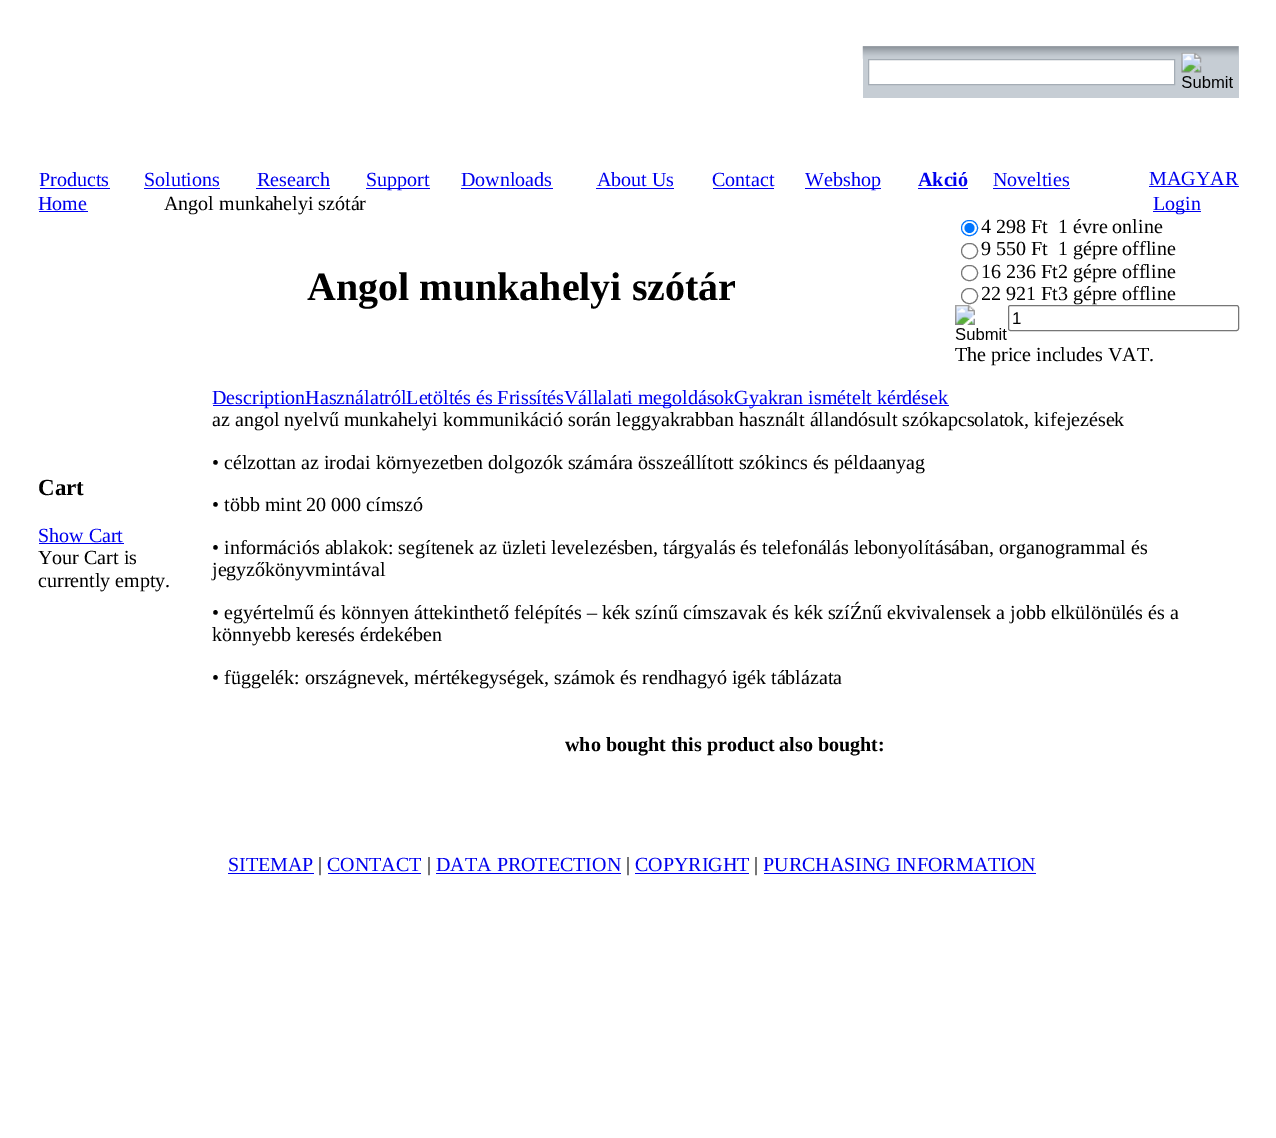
%!PS
<< /PageSize [1276 1138] >> setpagedevice
/roundrect { 5 dict begin { /r /h /w /y /x } { exch def } forall
  x r add y moveto x w add y 2 copy h add r arct x w add y h add x 1 index r arct
  x y h add x y r arct x y 2 copy exch w add exch r arct closepath end } def
/picture { 5 dict begin { /h /w /y /x /name } { exch def } forall
  gsave x y translate w h scale
  w h 8 [w 0 0 h 0 0] name (r) file false 3 colorimage grestore end } def
0 1138 translate 1 -1 scale
4 setmiterlimit
1 setgray
0 0 1276 1138 rectfill
0.776 0.804 0.831 setrgbcolor
863 46 376 52 rectfill
(img1.rgb) 862 46 377 13 picture
1 setgray
newpath 868.5 59.5 moveto 1174.5 59.5 lineto 1174.5 84.5 lineto 868.5 84.5 lineto closepath gsave fill grestore
0.647 0.678 0.71 setrgbcolor
stroke
(img2.rgb) 1181 52 52 36 picture
/LiberationSerif-Regular [20 0 0 -20 0 0] selectfont
0 0 0.933 setrgbcolor
39 186 moveto (Products) show
40 188 70 1 rectfill
144 186 moveto (Solutions) show
144 188 76 1 rectfill
257 186 moveto (Research) show
256 188 74 1 rectfill
366 188 64 1 rectfill
366 186 moveto (Support) show
461 186 moveto (Downloads) show
461 188 92 1 rectfill
597 186 moveto (About Us) show
596 188 78 1 rectfill
712 186 moveto (Contact) show
713 188 61 1 rectfill
805 188 76 1 rectfill
805 186 moveto (Webshop) show
/LiberationSerif-Bold [20 0 0 -20 0 0] selectfont
918 186 moveto (Akció) show
918 188 50 1 rectfill
/LiberationSerif-Regular [20 0 0 -20 0 0] selectfont
993 186 moveto (Novelties) show
993 188 77 1 rectfill
1149 185 moveto (MAGYAR) show
1149 186 90 1 rectfill
38 210 moveto (Home) show
39 211 49 1 rectfill
0 setgray
164 210 moveto (Angol munkahelyi szótár) show
0 0 0.933 setrgbcolor
1153 211 48 1 rectfill
1153 210 moveto (Login) show
/LiberationSerif-Bold [23 0 0 -23 0 0] selectfont
0 setgray
38 495 moveto (Cart) show
/LiberationSerif-Regular [20 0 0 -20 0 0] selectfont
0 0 0.933 setrgbcolor
38 542 moveto (Show Cart) show
39 543 85 1 rectfill
0 setgray
38 564 moveto (Your Cart is) show
38 587 moveto (currently empty.) show
/LiberationSerif-Bold [40 0 0 -40 0 0] selectfont
307 300 moveto (Angol munkahelyi szótár) show
0 0.459 1 setrgbcolor
961.5 220.5 16 15 7.5 roundrect stroke
newpath 969.5 228 5 0 360 arc closepath fill
/LiberationSerif-Regular [20 0 0 -20 0 0] selectfont
0 setgray
981 233 moveto (4 298 Ft) show
1058 233 moveto (1 évre online) show
0.463 setgray
961.5 243.5 16 15 7.5 roundrect stroke
0 setgray
981 255 moveto (9 550 Ft) show
1058 255 moveto (1 gépre offline) show
0.463 setgray
961.5 265.5 16 15 7.5 roundrect stroke
0 setgray
981 278 moveto (16 236 Ft2 gépre offline) show
0.463 setgray
961.5 288.5 16 15 7.5 roundrect stroke
0 setgray
981 300 moveto (22 921 Ft3 gépre offline) show
(img3.rgb) 955 305 52 35 picture
0.463 setgray
1008.5 305.5 230 25 2 roundrect stroke
/LiberationSans-Regular [17 0 0 -17 0 0] selectfont
0 setgray
1012 324 moveto (1) show
/LiberationSerif-Regular [20 0 0 -20 0 0] selectfont
955 361 moveto (The price includes VAT.) show
0 0 0.933 setrgbcolor
213 405 193 1 rectfill
212 404 moveto (DescriptionHasználatrólLetöltés és Frissítés) show
406 405 543 1 rectfill
564 404 moveto (Vállalati megoldásokGyakran ismételt kérdések) show
0 setgray
212 426 moveto (az angol nyelvű munkahelyi kommunikáció során leggyakrabban használt állandósult szókapcsolatok, kifejezések) show
212 469 moveto (• célzottan az irodai környezetben dolgozók számára összeállított szókincs és példaanyag) show
212 511 moveto (• több mint 20 000 címszó) show
212 554 moveto (• információs ablakok: segítenek az üzleti levelezésben, tárgyalás és telefonálás lebonyolításában, organogrammal és) show
212 576 moveto (jegyzőkönyvmintával) show
212 619 moveto (• egyértelmű és könnyen áttekinthető felépítés – kék színű címszavak és kék szíŹnű ekvivalensek a jobb elkülönülés és a) show
212 641 moveto (könnyebb keresés érdekében) show
212 684 moveto (• függelék: országnevek, mértékegységek, számok és rendhagyó igék táblázata) show
/LiberationSerif-Bold [20 0 0 -20 0 0] selectfont
565 751 moveto (who bought this product also bought:) show
/LiberationSerif-Regular [20 0 0 -20 0 0] selectfont
0 0 0.933 setrgbcolor
228 871 moveto (SITEMAP) show
228 873 86 1 rectfill
0 setgray
318 871 moveto (|) show
0 0 0.933 setrgbcolor
327 871 moveto (CONTACT) show
328 873 93 1 rectfill
0 setgray
427 871 moveto (|) show
0 0 0.933 setrgbcolor
436 871 moveto (DATA PROTECTION) show
436 873 185 1 rectfill
0 setgray
626 871 moveto (|) show
0 0 0.933 setrgbcolor
635 871 moveto (COPYRIGHT) show
635 873 114 1 rectfill
0 setgray
754 871 moveto (|) show
0 0 0.933 setrgbcolor
763 871 moveto (PURCHASING INFORMATION) show
764 873 272 1 rectfill
showpage
